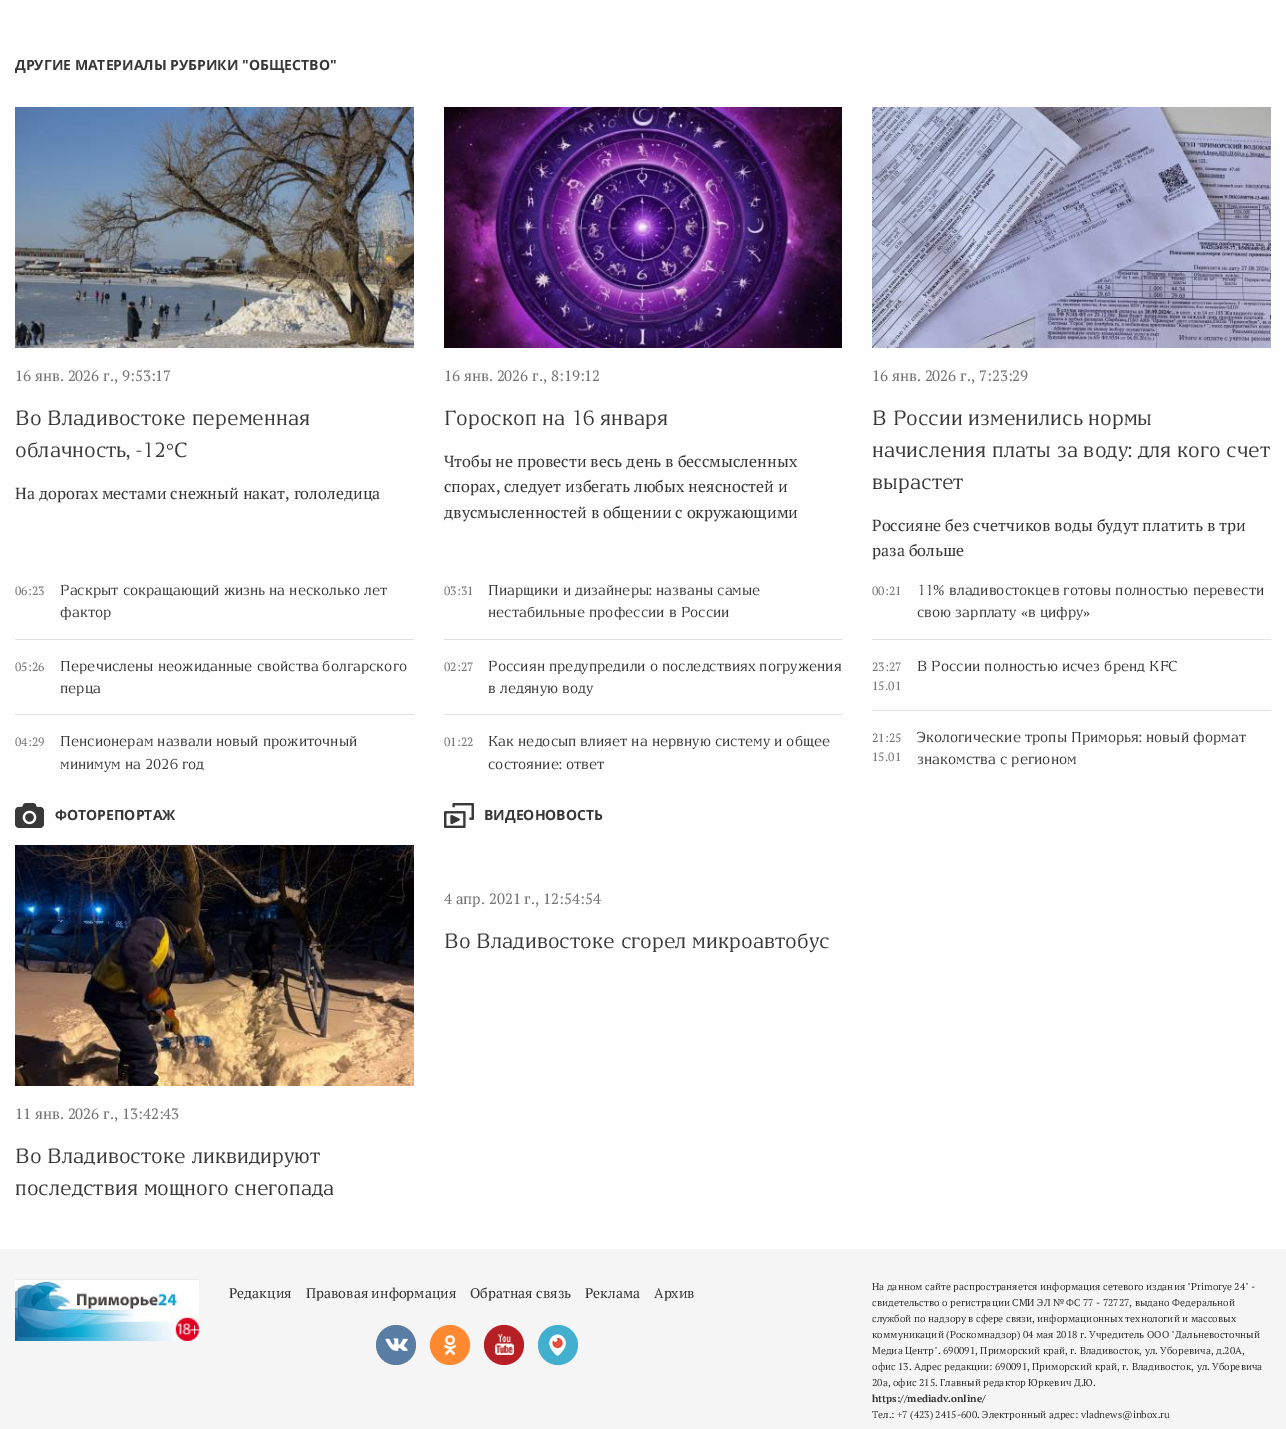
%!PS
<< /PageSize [1286 1429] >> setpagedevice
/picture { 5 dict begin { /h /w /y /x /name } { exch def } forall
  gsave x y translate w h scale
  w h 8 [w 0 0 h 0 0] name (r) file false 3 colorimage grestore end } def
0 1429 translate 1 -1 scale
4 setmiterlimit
0.961 setgray
0 0 1286 1429 rectfill
0.996 setgray
0 0 1286 1249 rectfill
/OpenSans-Bold [14 0 0 -14 0 0] selectfont
0.22 setgray
15 70 moveto (ДРУГИЕ МАТЕРИАЛЫ РУБРИКИ "ОБЩЕСТВО") show
(img1.rgb) 15 107 399 241 picture
/PTSerif-Regular [15 0 0 -15 0 0] selectfont
0.459 setgray
15 381 moveto (16 янв. 2026 г., 9:53:17) show
/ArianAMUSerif-Regular [20 0 0 -20 0 0] selectfont
0.22 setgray
15 425 moveto (Во Владивостоке переменная) show
15 457 moveto (облачность, -12) show
/LiberationSerif-Regular [20 0 0 -20 0 0] selectfont
166 457 moveto (°) show
/ArianAMUSerif-Regular [20 0 0 -20 0 0] selectfont
174 457 moveto (С) show
/PTSerif-Regular [16 0 0 -16 0 0] selectfont
15 499 moveto (На дорогах местами снежный накат, гололедица) show
(img2.rgb) 444 107 398 241 picture
/PTSerif-Regular [15 0 0 -15 0 0] selectfont
0.459 setgray
444 381 moveto (16 янв. 2026 г., 8:19:12) show
/ArianAMUSerif-Regular [20 0 0 -20 0 0] selectfont
0.22 setgray
444 425 moveto (Гороскоп на 16 января) show
/PTSerif-Regular [16 0 0 -16 0 0] selectfont
444 467 moveto (Чтобы не провести весь день в бессмысленных) show
444 492 moveto (спорах, следует избегать любых неясностей и) show
444 518 moveto (двусмысленностей в общении с окружающими) show
(img3.rgb) 872 107 399 241 picture
/PTSerif-Regular [15 0 0 -15 0 0] selectfont
0.459 setgray
872 381 moveto (16 янв. 2026 г., 7:23:29) show
/ArianAMUSerif-Regular [20 0 0 -20 0 0] selectfont
0.22 setgray
872 425 moveto (В России изменились нормы) show
872 457 moveto (начисления платы за воду: для кого счет) show
872 489 moveto (вырастет) show
/PTSerif-Regular [16 0 0 -16 0 0] selectfont
872 531 moveto (Россияне без счетчиков воды будут платить в три) show
872 556 moveto (раза больше) show
/PTSerif-Regular [12 0 0 -12 0 0] selectfont
0.459 setgray
15 595 moveto (06:23) show
/ArianAMUSerif-Regular [14 0 0 -14 0 0] selectfont
0.22 setgray
60 595 moveto (Раскрыт сокращающий жизнь на несколько лет) show
60 617 moveto (фактор) show
0.878 setgray
15 639 399 1 rectfill
/PTSerif-Regular [12 0 0 -12 0 0] selectfont
0.459 setgray
15 671 moveto (05:26) show
/ArianAMUSerif-Regular [14 0 0 -14 0 0] selectfont
0.22 setgray
60 671 moveto (Перечислены неожиданные свойства болгарского) show
60 693 moveto (перца) show
0.878 setgray
15 714 399 1 rectfill
/PTSerif-Regular [12 0 0 -12 0 0] selectfont
0.459 setgray
15 746 moveto (04:29) show
/ArianAMUSerif-Regular [14 0 0 -14 0 0] selectfont
0.22 setgray
60 746 moveto (Пенсионерам назвали новый прожиточный) show
60 769 moveto (минимум на 2026 год) show
/PTSerif-Regular [12 0 0 -12 0 0] selectfont
0.459 setgray
444 595 moveto (03:31) show
/ArianAMUSerif-Regular [14 0 0 -14 0 0] selectfont
0.22 setgray
488 595 moveto (Пиарщики и дизайнеры: названы самые) show
488 617 moveto (нестабильные профессии в России) show
0.878 setgray
444 639 398 1 rectfill
/PTSerif-Regular [12 0 0 -12 0 0] selectfont
0.459 setgray
444 671 moveto (02:27) show
/ArianAMUSerif-Regular [14 0 0 -14 0 0] selectfont
0.22 setgray
488 671 moveto (Россиян предупредили о последствиях погружения) show
488 693 moveto (в ледяную воду) show
0.878 setgray
444 714 398 1 rectfill
/PTSerif-Regular [12 0 0 -12 0 0] selectfont
0.459 setgray
444 746 moveto (01:22) show
/ArianAMUSerif-Regular [14 0 0 -14 0 0] selectfont
0.22 setgray
488 746 moveto (Как недосып влияет на нервную систему и общее) show
488 769 moveto (состояние: ответ) show
/PTSerif-Regular [12 0 0 -12 0 0] selectfont
0.459 setgray
872 595 moveto (00:21) show
/ArianAMUSerif-Regular [14 0 0 -14 0 0] selectfont
0.22 setgray
917 595 moveto (11% владивостокцев готовы полностью перевести) show
917 617 moveto (свою зарплату) show
/LiberationSerif-Regular [14 0 0 -14 0 0] selectfont
1021 617 moveto («) show
/ArianAMUSerif-Regular [14 0 0 -14 0 0] selectfont
1028 617 moveto (в цифру) show
/LiberationSerif-Regular [14 0 0 -14 0 0] selectfont
1083 617 moveto (») show
0.878 setgray
872 639 399 1 rectfill
/PTSerif-Regular [12 0 0 -12 0 0] selectfont
0.459 setgray
872 671 moveto (23:27) show
872 690 moveto (15.01) show
/ArianAMUSerif-Regular [14 0 0 -14 0 0] selectfont
0.22 setgray
917 671 moveto (В России полностью исчез бренд KFC) show
0.878 setgray
872 710 399 1 rectfill
/PTSerif-Regular [12 0 0 -12 0 0] selectfont
0.459 setgray
872 742 moveto (21:25) show
872 761 moveto (15.01) show
/ArianAMUSerif-Regular [14 0 0 -14 0 0] selectfont
0.22 setgray
917 742 moveto (Экологические тропы Приморья: новый формат) show
917 764 moveto (знакомства с регионом) show
(img4.rgb) 15 803 29 25 picture
/OpenSans-Bold [14 0 0 -14 0 0] selectfont
55 820 moveto (ФОТОРЕПОРТАЖ) show
(img5.rgb) 15 845 399 241 picture
/PTSerif-Regular [15 0 0 -15 0 0] selectfont
0.459 setgray
15 1119 moveto (11 янв. 2026 г., 13:42:43) show
/ArianAMUSerif-Regular [20 0 0 -20 0 0] selectfont
0.22 setgray
15 1163 moveto (Во Владивостоке ликвидируют) show
15 1195 moveto (последствия мощного снегопада) show
(img6.rgb) 444 803 30 25 picture
/OpenSans-Bold [14 0 0 -14 0 0] selectfont
484 820 moveto (ВИДЕОНОВОСТЬ) show
/PTSerif-Regular [15 0 0 -15 0 0] selectfont
0.459 setgray
444 904 moveto (4 апр. 2021 г., 12:54:54) show
/ArianAMUSerif-Regular [20 0 0 -20 0 0] selectfont
0.22 setgray
444 948 moveto (Во Владивостоке сгорел микроавтобус) show
(img7.rgb) 15 1279 184 62 picture
/PTSerif-Regular [14 0 0 -14 0 0] selectfont
229 1298 moveto (Редакция) show
306 1298 moveto (Правовая информация) show
470 1298 moveto (Обратная связь) show
585 1298 moveto (Реклама) show
654 1298 moveto (Архив) show
0.349 0.49 0.639 setrgbcolor
newpath 396 1345 20 0 360 arc closepath fill
(img8.rgb) 385 1338 23 13 picture
1 0.537 0.192 setrgbcolor
newpath 450 1345 20 0 360 arc closepath fill
(img9.rgb) 444 1335 12 20 picture
0.714 0.125 0.145 setrgbcolor
newpath 504 1345 20 0 360 arc closepath fill
(img10.rgb) 495 1334 19 21 picture
0.259 0.686 0.812 setrgbcolor
newpath 558 1345 20 0 360 arc closepath fill
(img11.rgb) 549 1334 17 22 picture
/PTSerif-Regular [10 0 0 -10 0 0] selectfont
0.22 setgray
872 1290 moveto (На данном сайте распространяется информация сетевого издания "Primorye 24" -) show
872 1306 moveto (свидетельство о регистрации СМИ ЭЛ № ФС 77 - 72727, выдано Федеральной) show
872 1322 moveto (службой по надзору в сфере связи, информационных технологий и массовых) show
872 1338 moveto (коммуникаций \(Роскомнадзор\) 04 мая 2018 г. Учредитель ООО "Дальневосточный) show
872 1354 moveto (Медиа Центр". 690091, Приморский край, г. Владивосток, ул. Уборевича, д.20А,) show
872 1370 moveto (офис 13. Адрес редакции: 690091, Приморский край, г. Владивосток, ул. Уборевича) show
872 1386 moveto (20а, офис 215. Главный редактор Юркевич Д.Ю.) show
/PTSerif-Bold [10 0 0 -10 0 0] selectfont
872 1402 moveto (https://mediadv.online/) show
/PTSerif-Regular [10 0 0 -10 0 0] selectfont
872 1418 moveto (Тел.: +7 \(423\) 2415-600. Электронный адрес: vladnews@inbox.ru) show
showpage
